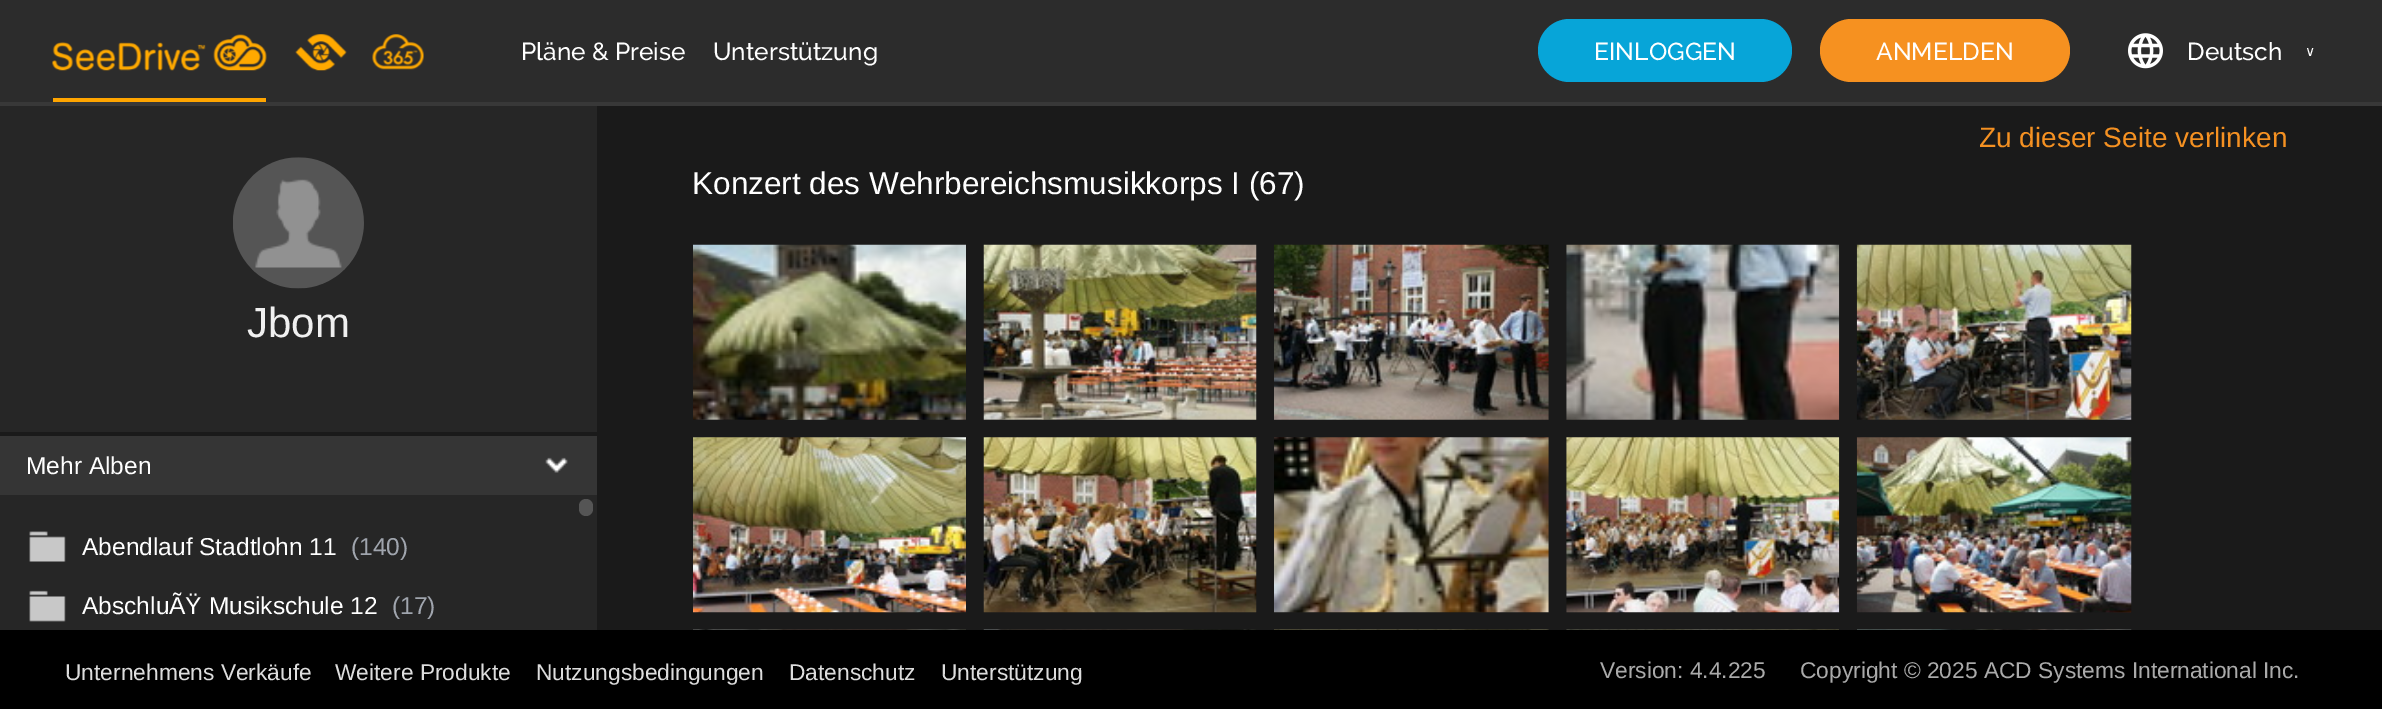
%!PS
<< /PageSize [2382 709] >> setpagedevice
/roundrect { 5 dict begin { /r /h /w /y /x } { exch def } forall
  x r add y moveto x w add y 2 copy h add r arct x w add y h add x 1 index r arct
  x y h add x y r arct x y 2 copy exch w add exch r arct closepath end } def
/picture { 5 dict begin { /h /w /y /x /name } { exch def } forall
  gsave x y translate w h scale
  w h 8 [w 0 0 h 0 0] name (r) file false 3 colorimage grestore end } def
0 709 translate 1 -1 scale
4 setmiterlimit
0.102 setgray
0 0 2382 709 rectfill
0.173 setgray
0 0 2382 102 rectfill
0.22 setgray
0 102 2382 4 rectfill
1 0.647 0 setrgbcolor
53 98 213 4 rectfill
(img1.rgb) 52 34 215 37 picture
(img2.rgb) 295 34 52 37 picture
(img3.rgb) 372 34 52 36 picture
/Raleway-Medium [24.5 0 0 -24.5 0 0] selectfont
1 setgray
521 60 moveto (Pläne & Preise) show
713 60 moveto (Unterstützung) show
0.027 0.647 0.847 setrgbcolor
1538 19 254 63 31.5 roundrect fill
1 setgray
1594 60 moveto (EINLOGGEN) show
0.965 0.569 0.125 setrgbcolor
1820 19 250 63 31.5 roundrect fill
1 setgray
1876 60 moveto (ANMELDEN) show
(img4.rgb) 2128 33 35 36 picture
2187 60 moveto (Deutsch) show
/DejaVuSans-Regular [14 0 0 -14 0 0] selectfont
2305 56 moveto 8 0 (∨) ashow
/LiberationSans-Regular [28 0 0 -28 0 0] selectfont
0.961 0.569 0.133 setrgbcolor
1979 147 moveto (Zu dieser Seite verlinken) show
/LiberationSans-Regular [31.5 0 0 -31.5 0 0] selectfont
1 setgray
692 194 moveto (Konzert des Wehrbereichsmusikkorps I \(67\)) show
(img5.rgb) 693 244 273 176 picture
(img6.rgb) 983 244 274 176 picture
(img7.rgb) 1274 244 275 176 picture
(img8.rgb) 1566 244 274 176 picture
(img9.rgb) 1856 244 276 176 picture
(img10.rgb) 693 437 273 176 picture
(img11.rgb) 983 437 274 176 picture
(img12.rgb) 1274 437 275 176 picture
(img13.rgb) 1566 437 274 176 picture
(img14.rgb) 1856 437 276 176 picture
(img15.rgb) 693 629 273 1 picture
(img16.rgb) 983 629 274 1 picture
(img17.rgb) 1274 629 275 1 picture
(img18.rgb) 1566 629 273 1 picture
(img19.rgb) 1857 629 275 1 picture
0.149 setgray
0 106 597 326 rectfill
(img20.rgb) 233 157 131 132 picture
/LiberationSans-Regular [42 0 0 -42 0 0] selectfont
0.941 setgray
247 337 moveto (Jbom) show
0.149 setgray
0 495 597 135 rectfill
0.208 setgray
0 436 597 59 rectfill
/LiberationSans-Regular [24.5 0 0 -24.5 0 0] selectfont
1 setgray
26 474 moveto (Mehr Alben) show
(img21.rgb) 545 457 23 16 picture
0.333 setgray
579 499 14 17 7 roundrect fill
(img22.rgb) 29 531 37 31 picture
1 setgray
82 555 moveto (Abendlauf Stadtlohn 11) show
0.627 0.647 0.682 setrgbcolor
351 555 moveto (\(140\)) show
(img23.rgb) 29 590 37 32 picture
1 setgray
82 614 moveto (AbschluÃŸ Musikschule 12) show
0.627 0.647 0.682 setrgbcolor
392 614 moveto (\(17\)) show
0 setgray
0 630 2382 79 rectfill
/LiberationSans-Regular [22.75 0 0 -22.75 0 0] selectfont
0.867 setgray
65 680 moveto (Unternehmens Verkäufe) show
335 680 moveto (Weitere Produkte) show
536 680 moveto (Nutzungsbedingungen) show
789 680 moveto (Datenschutz) show
941 680 moveto (Unterstützung) show
0.667 setgray
1600 678 moveto (Version: 4.4.225) show
1800 678 moveto (Copyright © 2025 ACD Systems International Inc.) show
showpage
